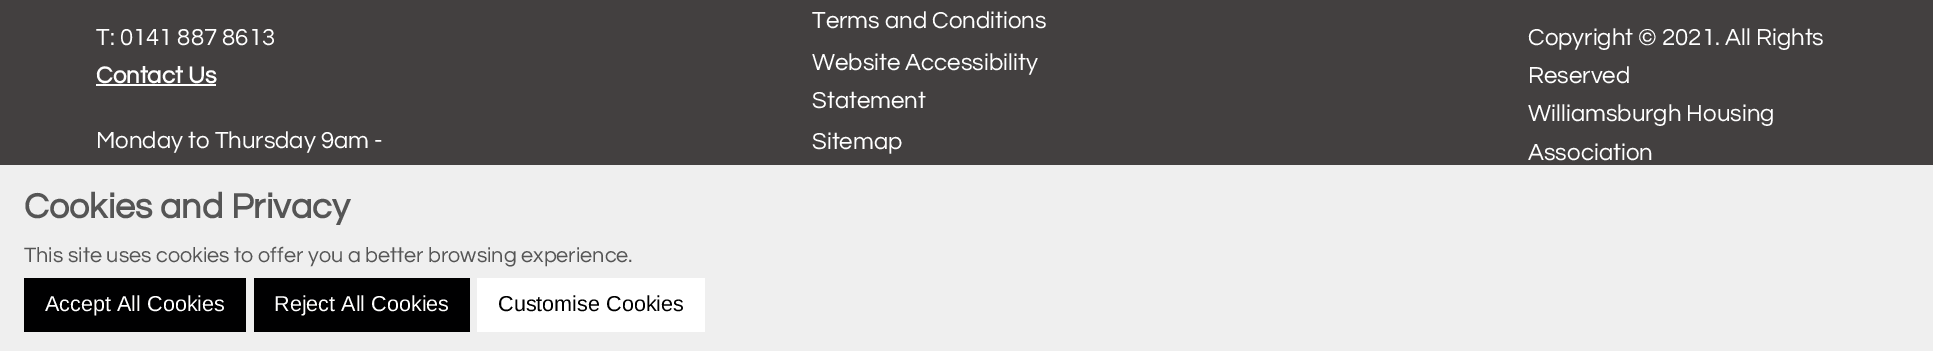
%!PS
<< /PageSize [1933 351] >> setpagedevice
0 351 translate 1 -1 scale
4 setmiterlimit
0.263 0.251 0.251 setrgbcolor
0 0 1933 351 rectfill
/Questrial-Regular [24 0 0 -24 0 0] selectfont
1 setgray
96 45 moveto (T: 0141 887 8613) show
/Questrial-Bold [24 0 0 -24 0 0] selectfont
96 83 moveto (Contact Us) show
96 84 120 2 rectfill
/Questrial-Regular [24 0 0 -24 0 0] selectfont
96 148 moveto (Monday to Thursday 9am -) show
812 28 moveto (Terms and Conditions) show
812 70 moveto (Website Accessibility) show
812 108 moveto (Statement) show
812 149 moveto (Sitemap) show
1528 45 moveto (Copyright © 2021. All Rights) show
1528 83 moveto (Reserved) show
1528 121 moveto (Williamsburgh Housing) show
1528 160 moveto (Association) show
0.937 setgray
0 165 1933 186 rectfill
/Questrial-Bold [36 0 0 -36 0 0] selectfont
0.333 setgray
24 218 moveto (Cookies and Privacy) show
/Questrial-Regular [21.6 0 0 -21.6 0 0] selectfont
24 262 moveto (This site uses cookies to offer you a better browsing experience.) show
0 0 0.004 setrgbcolor
24 278 222 54 rectfill
/LiberationSans-Regular [21.6 0 0 -21.6 0 0] selectfont
1 setgray
45 311 moveto (Accept All Cookies) show
0 0 0.004 setrgbcolor
254 278 216 54 rectfill
1 setgray
274 311 moveto (Reject All Cookies) show
477 278 228 54 rectfill
0 setgray
498 311 moveto (Customise Cookies) show
showpage
